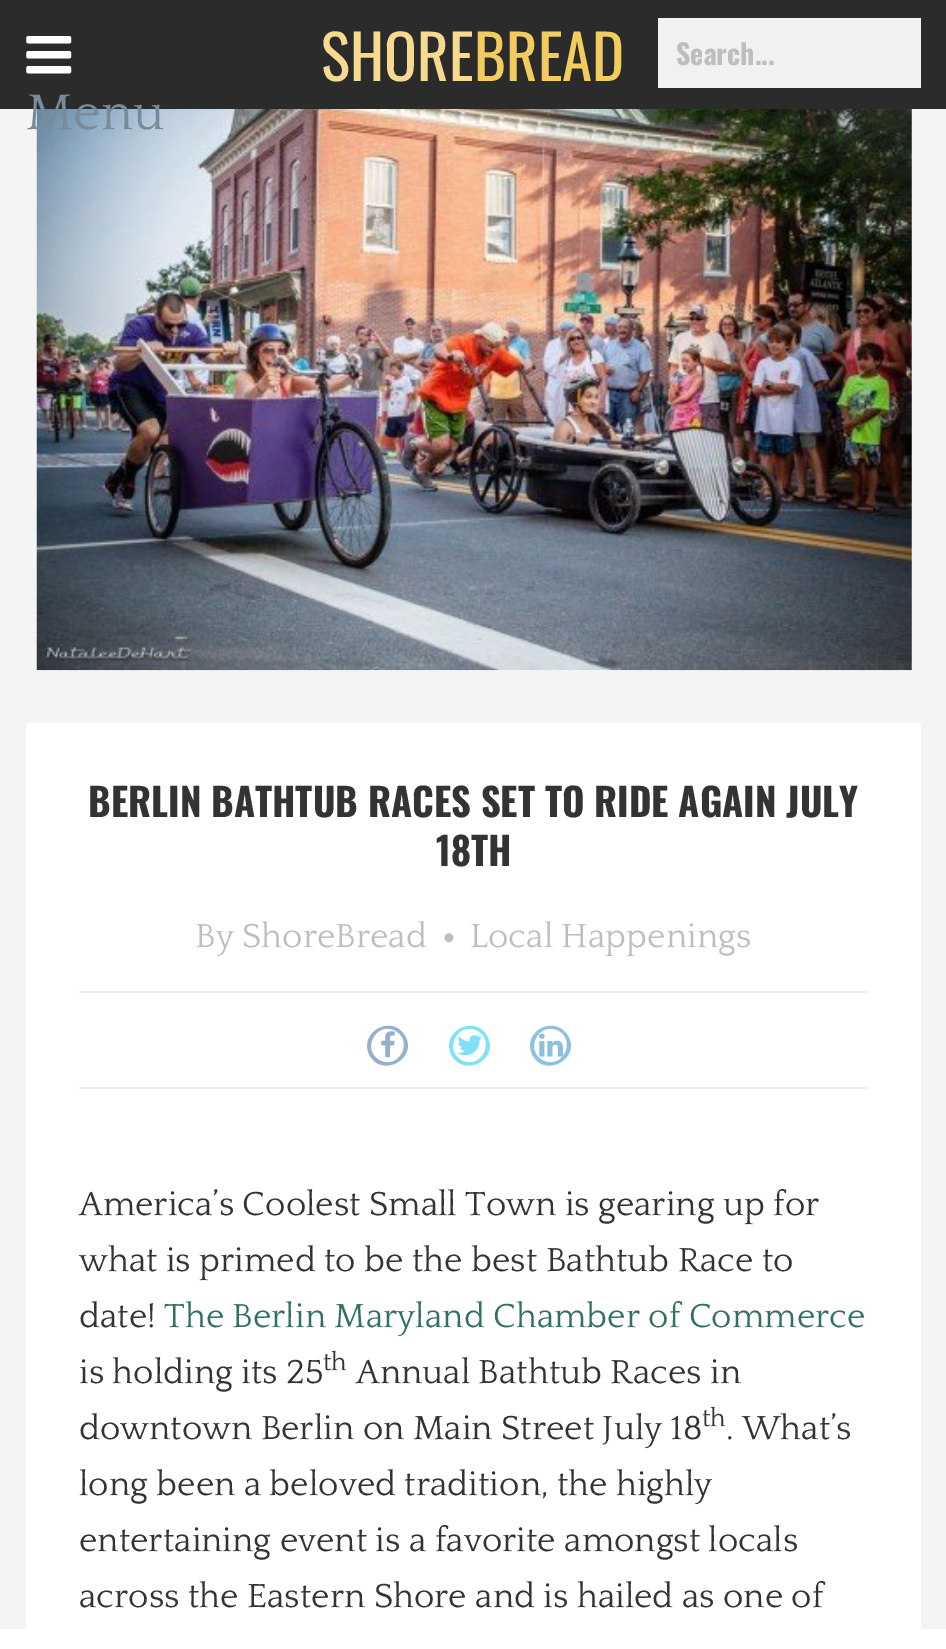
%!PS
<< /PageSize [946 1649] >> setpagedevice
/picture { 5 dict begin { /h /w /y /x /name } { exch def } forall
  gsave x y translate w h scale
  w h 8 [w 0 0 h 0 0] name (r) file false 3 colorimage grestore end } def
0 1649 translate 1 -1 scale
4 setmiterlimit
1 setgray
0 0 946 1649 rectfill
0.169 setgray
0 0 946 109 rectfill
/Oswald-Regular [61 0 0 -61 0 0] selectfont
0.965 0.855 0.561 setrgbcolor
321 81 moveto (SHORE) show
0.949 0.8 0.373 setrgbcolor
474 81 moveto (BREAD) show
0.945 setgray
658 18 263 70 rectfill
/Oswald-Bold [28 0 0 -28 0 0] selectfont
0.745 setgray
676 65 moveto (Search...) show
(img1.rgb) 26 36 46 38 picture
0.957 setgray
0 109 946 1520 rectfill
(img2.rgb) 36 109 876 562 picture
/Quattrocento-Regular [52.5 0 0 -52.5 0 0] selectfont
0.475 0.541 0.596 setrgbcolor
26 129 moveto (Menu) show
1 setgray
26 723 895 906 rectfill
/Oswald-Bold [38.5 0 0 -38.5 0 0] selectfont
0.2 setgray
88 817 moveto (BERLIN BATHTUB RACES SET TO RIDE AGAIN JULY) show
436 866 moveto (18TH) show
/Quattrocento-Regular [35 0 0 -35 0 0] selectfont
0.745 setgray
195 947 moveto (By ShoreBread) show
(img3.rgb) 444 933 10 10 picture
470 947 moveto (Local Happenings) show
0.933 setgray
79 991 789 2 rectfill
79 1087 789 2 rectfill
0.588 0.69 0.804 setrgbcolor
newpath 394 1030 moveto 374 1022 361 1052 381 1061 curveto 401 1069 414 1039 394 1030 curveto closepath 405 1036 moveto 418 1058 383 1078 370 1056 curveto 357 1033 392 1013 405 1036 curveto closepath fill
(img4.rgb) 381 1031 14 27 picture
0.502 0.882 0.976 setrgbcolor
newpath 476 1030 moveto 456 1022 443 1052 463 1061 curveto 483 1069 496 1039 476 1030 curveto closepath 487 1036 moveto 500 1058 466 1078 452 1056 curveto 439 1033 474 1013 487 1036 curveto closepath fill
(img5.rgb) 457 1035 25 21 picture
0.549 0.761 0.871 setrgbcolor
newpath 557 1030 moveto 537 1022 524 1052 544 1061 curveto 564 1069 577 1039 557 1030 curveto closepath 568 1036 moveto 581 1058 546 1078 533 1056 curveto 520 1033 554 1013 568 1036 curveto closepath fill
(img6.rgb) 539 1033 24 24 picture
0.2 setgray
79 1215 moveto (America’s Coolest Small Town is gearing up for) show
79 1271 moveto (what is primed to be the best Bathtub Race to) show
79 1327 moveto (date!) show
0.196 0.439 0.4 setrgbcolor
164 1327 moveto (The Berlin Maryland Chamber of Commerce) show
0.2 setgray
79 1383 moveto (is holding its 25) show
/Quattrocento-Regular [26 0 0 -26 0 0] selectfont
323 1370 moveto (th) show
/Quattrocento-Regular [35 0 0 -35 0 0] selectfont
356 1383 moveto (Annual Bathtub Races in) show
79 1439 moveto (downtown Berlin on Main Street July 18) show
/Quattrocento-Regular [26 0 0 -26 0 0] selectfont
702 1426 moveto (th) show
/Quattrocento-Regular [35 0 0 -35 0 0] selectfont
726 1439 moveto (. What’s) show
79 1495 moveto (long been a beloved tradition, the highly) show
79 1551 moveto (entertaining event is a favorite amongst locals) show
79 1607 moveto (across the Eastern Shore and is hailed as one of) show
showpage
